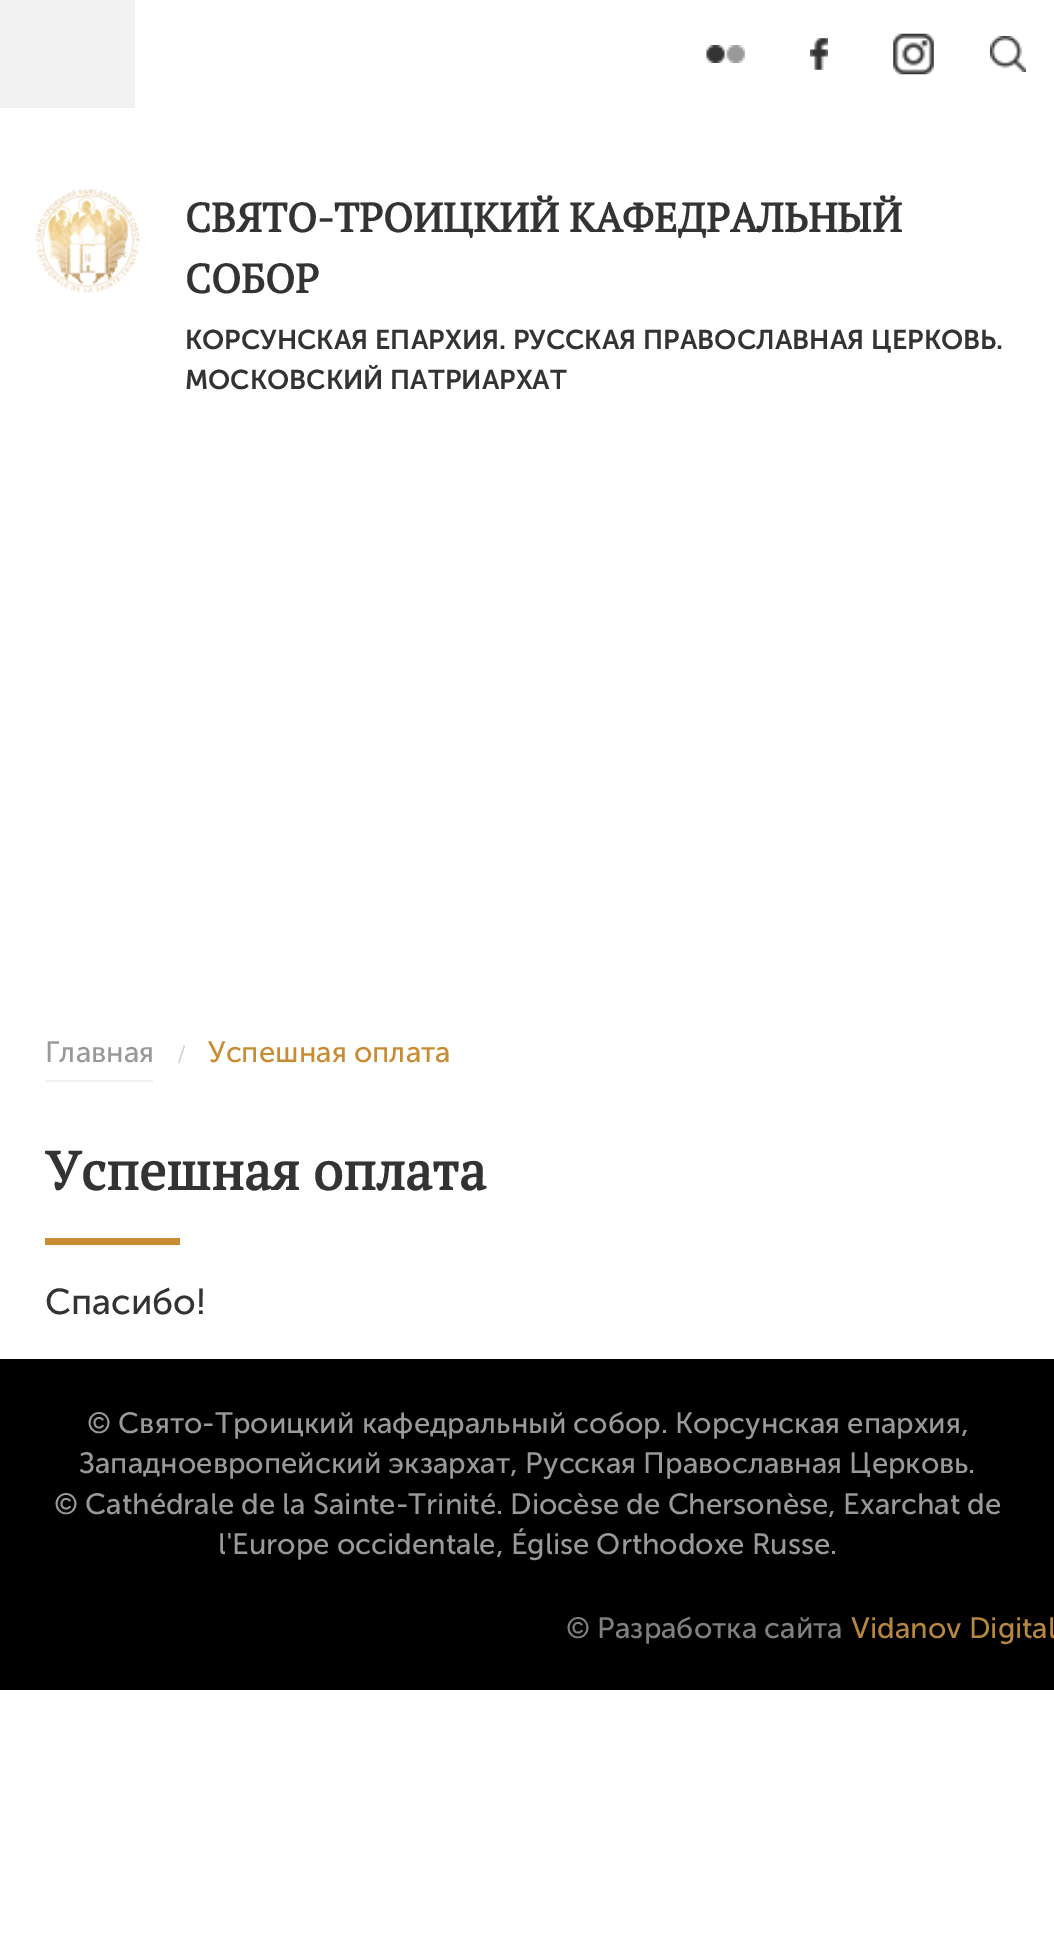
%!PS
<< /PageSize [1054 1960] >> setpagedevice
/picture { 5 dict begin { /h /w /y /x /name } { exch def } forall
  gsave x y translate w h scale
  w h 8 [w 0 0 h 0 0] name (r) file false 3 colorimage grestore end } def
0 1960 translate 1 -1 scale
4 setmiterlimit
1 setgray
0 0 1054 1960 rectfill
0.945 setgray
0 0 135 108 rectfill
(img1.rgb) 706 45 39 18 picture
(img2.rgb) 810 38 18 32 picture
(img3.rgb) 893 33 41 42 picture
(img4.rgb) 990 36 36 36 picture
(img5.rgb) 36 189 104 104 picture
/PTSerif-Bold [40.5 0 0 -40.5 0 0] selectfont
0.2 setgray
185 232 moveto (СВЯТО-ТРОИЦКИЙ КАФЕДРАЛЬНЫЙ) show
185 293 moveto (СОБОР) show
/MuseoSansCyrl-SemiBold [27 0 0 -27 0 0] selectfont
185 349 moveto (КОРСУНСКАЯ ЕПАРХИЯ. РУССКАЯ ПРАВОСЛАВНАЯ ЦЕРКОВЬ.) show
185 389 moveto (МОСКОВСКИЙ ПАТРИАРХАТ) show
0.945 setgray
45 1080 108 2 rectfill
/MuseoSansCyrl-Regular [29.25 0 0 -29.25 0 0] selectfont
0.6 setgray
45 1062 moveto (Главная) show
/MuseoSansCyrl-Regular [22 0 0 -22 0 0] selectfont
0.839 setgray
177 1062 moveto (/) show
/MuseoSansCyrl-Regular [29.25 0 0 -29.25 0 0] selectfont
0.792 0.549 0.2 setrgbcolor
208 1062 moveto (Успешная оплата) show
/PTSerif-Bold [54 0 0 -54 0 0] selectfont
0.2 setgray
45 1190 moveto (Успешная оплата) show
0.792 0.549 0.2 setrgbcolor
45 1238 135 7 rectfill
/MuseoSansCyrl-Regular [36 0 0 -36 0 0] selectfont
0.2 setgray
45 1314 moveto (Спасибо!) show
0 setgray
0 1359 1054 331 rectfill
/MuseoSansCyrl-Regular [29.25 0 0 -29.25 0 0] selectfont
0.6 setgray
87 1433 moveto (© Свято-Троицкий кафедральный собор. Корсунская епархия,) show
79 1473 moveto (Западноевропейский экзархат, Русская Православная Церковь.) show
54 1514 moveto (© Cathédrale de la Sainte-Trinité. Diocèse de Chersonèse, Exarchat de) show
218 1554 moveto (l'Europe occidentale, Église Orthodoxe Russe.) show
0.502 setgray
566 1638 moveto (© Разработка сайта) show
0.714 0.529 0.251 setrgbcolor
851 1638 moveto (Vidanov Digital) show
showpage
